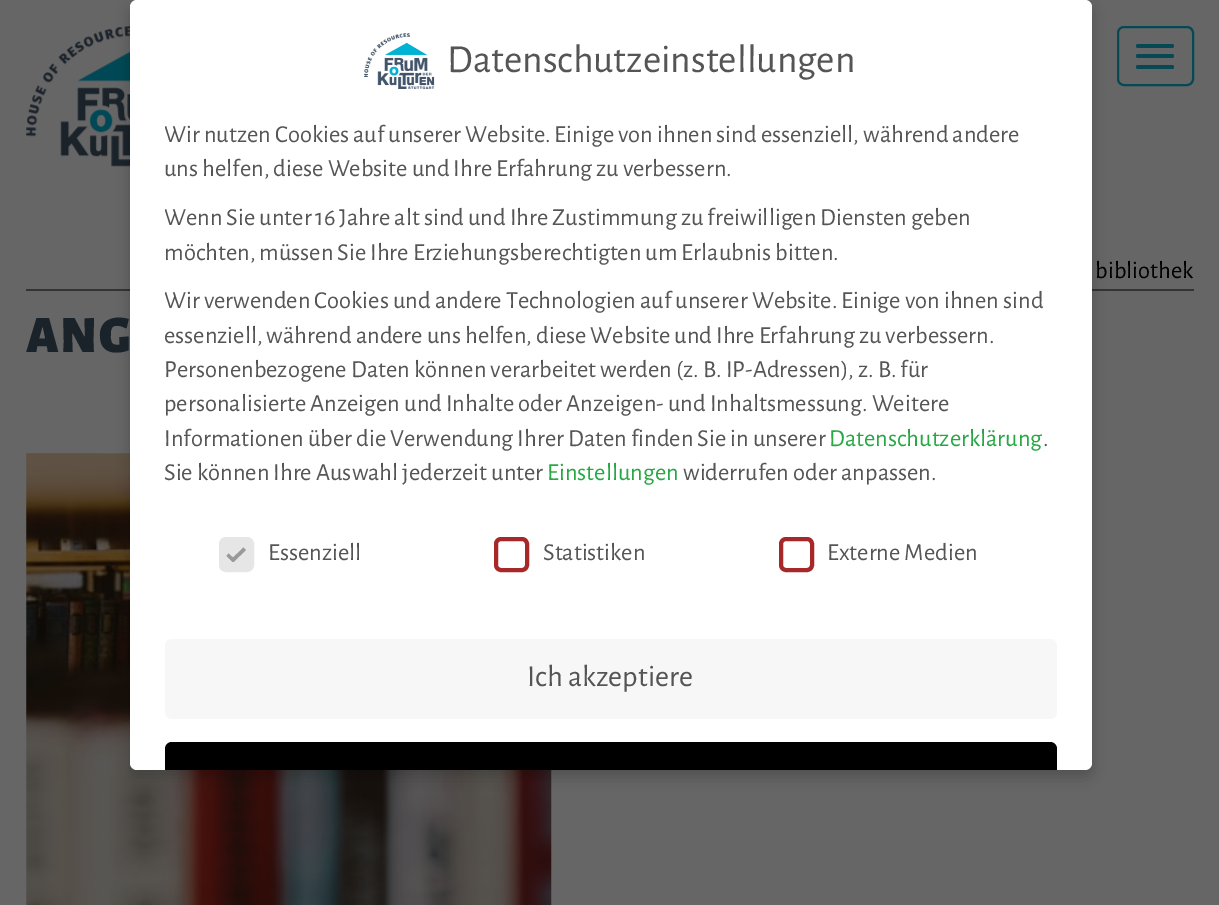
%!PS
<< /PageSize [1219 905] /PageUsesTransparency true >> setpagedevice
/alpha { dup .setfillconstantalpha .setstrokeconstantalpha } def
/roundrect { 5 dict begin { /r /h /w /y /x } { exch def } forall
  x r add y moveto x w add y 2 copy h add r arct x w add y h add x 1 index r arct
  x y h add x y r arct x y 2 copy exch w add exch r arct closepath end } def
/shadow { 12 dict begin { /a /b /q /h /w /y /x } { exch def } forall gsave /was 0 def
  9 -2 -9 { dup b mul 4 div /e exch def 1 sub .425 mul 2.718 exch exp 1 add a .99 .min exch div /now exch def
    1 1 now sub 1 was sub div sub alpha /was now def
    w h .min e 2 mul add 0 gt { x e sub y e sub w e 2 mul add h e 2 mul add
      q e add b .6 mul add w h .min 2 div e add .min 0 .max roundrect fill } if } for grestore end } def
/picture { 5 dict begin { /h /w /y /x /name } { exch def } forall
  gsave x y translate w h scale
  w h 8 [w 0 0 h 0 0] name (r) file false 3 colorimage grestore end } def
0 .pushpdf14devicefilter
0 905 translate 1 -1 scale
4 setmiterlimit
0.4 setgray
0 0 1219 905 rectfill
(img1.rgb) 26 26 104 141 picture
0.027 0.282 0.333 setrgbcolor
2 setlinewidth
1118 27 75 58 6 roundrect stroke
1136 44 38 4 2 roundrect fill
1136 54 38 4 2 roundrect fill
1136 65 38 4 2 roundrect fill
0.2 setgray
26 289 1168 2 rectfill
(img3.rgb) 26 453 526 452 picture
0 setgray
130 7 962 770 7 7 0.2 shadow
1 setgray
130 0 962 770 7 roundrect fill
(img2.rgb) 364 33 71 57 picture
/AlegreyaSans-Regular [39.75 0 0 -39.75 0 0] selectfont
0.333 setgray
447 72 moveto (Datenschutzeinstellungen) show
gsave
165 119 892 373 rectclip
/AlegreyaSans-Regular [24.5 0 0 -24.5 0 0] selectfont
164 142 moveto (Wir nutzen Cookies auf unserer Website. Einige von ihnen sind essenziell, während andere) show
grestore
/AlegreyaSans-Regular [24.5 0 0 -24.5 0 0] selectfont
164 176 moveto (uns helfen, diese Website und Ihre Erfahrung zu verbessern.) show
gsave
165 119 892 373 rectclip
164 225 moveto (Wenn Sie unter 16 Jahre alt sind und Ihre Zustimmung zu freiwilligen Diensten geben) show
grestore
164 260 moveto (möchten, müssen Sie Ihre Erziehungsberechtigten um Erlaubnis bitten.) show
gsave
165 119 892 373 rectclip
164 308 moveto (Wir verwenden Cookies und andere Technologien auf unserer Website. Einige von ihnen sind) show
164 343 moveto (essenziell, während andere uns helfen, diese Website und Ihre Erfahrung zu verbessern.) show
grestore
164 377 moveto (Personenbezogene Daten können verarbeitet werden \(z. B. IP-Adressen\), z. B. für) show
164 411 moveto (personalisierte Anzeigen und Inhalte oder Anzeigen- und Inhaltsmessung. Weitere) show
164 446 moveto (Informationen über die Verwendung Ihrer Daten finden Sie in unserer) show
0.157 0.655 0.271 setrgbcolor
829 446 moveto (Datenschutzerklärung) show
0.333 setgray
1043 446 moveto (.) show
164 480 moveto (Sie können Ihre Auswahl jederzeit unter) show
0.157 0.655 0.271 setrgbcolor
547 480 moveto (Einstellungen) show
0.333 setgray
683 480 moveto (widerrufen oder anpassen.) show
0.902 setgray
221 539 31 31 5 roundrect gsave fill grestore
4 setlinewidth
stroke
0.6 setgray
newpath 243.5 547.5 moveto 246 550 lineto 233.5 562 lineto 231 559.5 lineto closepath fill
newpath 228.5 553.5 moveto 235 559.5 lineto 232.5 562 lineto 226.5 556 lineto closepath fill
0.333 setgray
268 560 moveto (Essenziell) show
0.655 0.157 0.157 setrgbcolor
496 539 31 31 5 roundrect stroke
0.333 setgray
543 560 moveto (Statistiken) show
0.655 0.157 0.157 setrgbcolor
781 539 31 31 5 roundrect stroke
0.333 setgray
827 560 moveto (Externe Medien) show
0.969 setgray
165 639 892 80 7 roundrect fill
/AlegreyaSans-Regular [30.5 0 0 -30.5 0 0] selectfont
0.333 setgray
527 686 moveto (Ich akzeptiere) show
0 setgray
newpath 172 742 moveto 1050 742 lineto 1054 742 1057 745 1057 749 curveto 1057 770 lineto 165 770 lineto 165 749 lineto 165 745 168 742 172 742 curveto closepath fill
/AlegreyaSans-Regular [24.5 0 0 -24.5 0 0] selectfont
1095 278 moveto (bibliothek) show
/AlegreyaSans-Black [52.5 0 0 -52.5 0 0] selectfont
0.102 0.133 0.165 setrgbcolor
26 352 moveto 1.5 0 (ANG) ashow
.poppdf14devicefilter showpage
